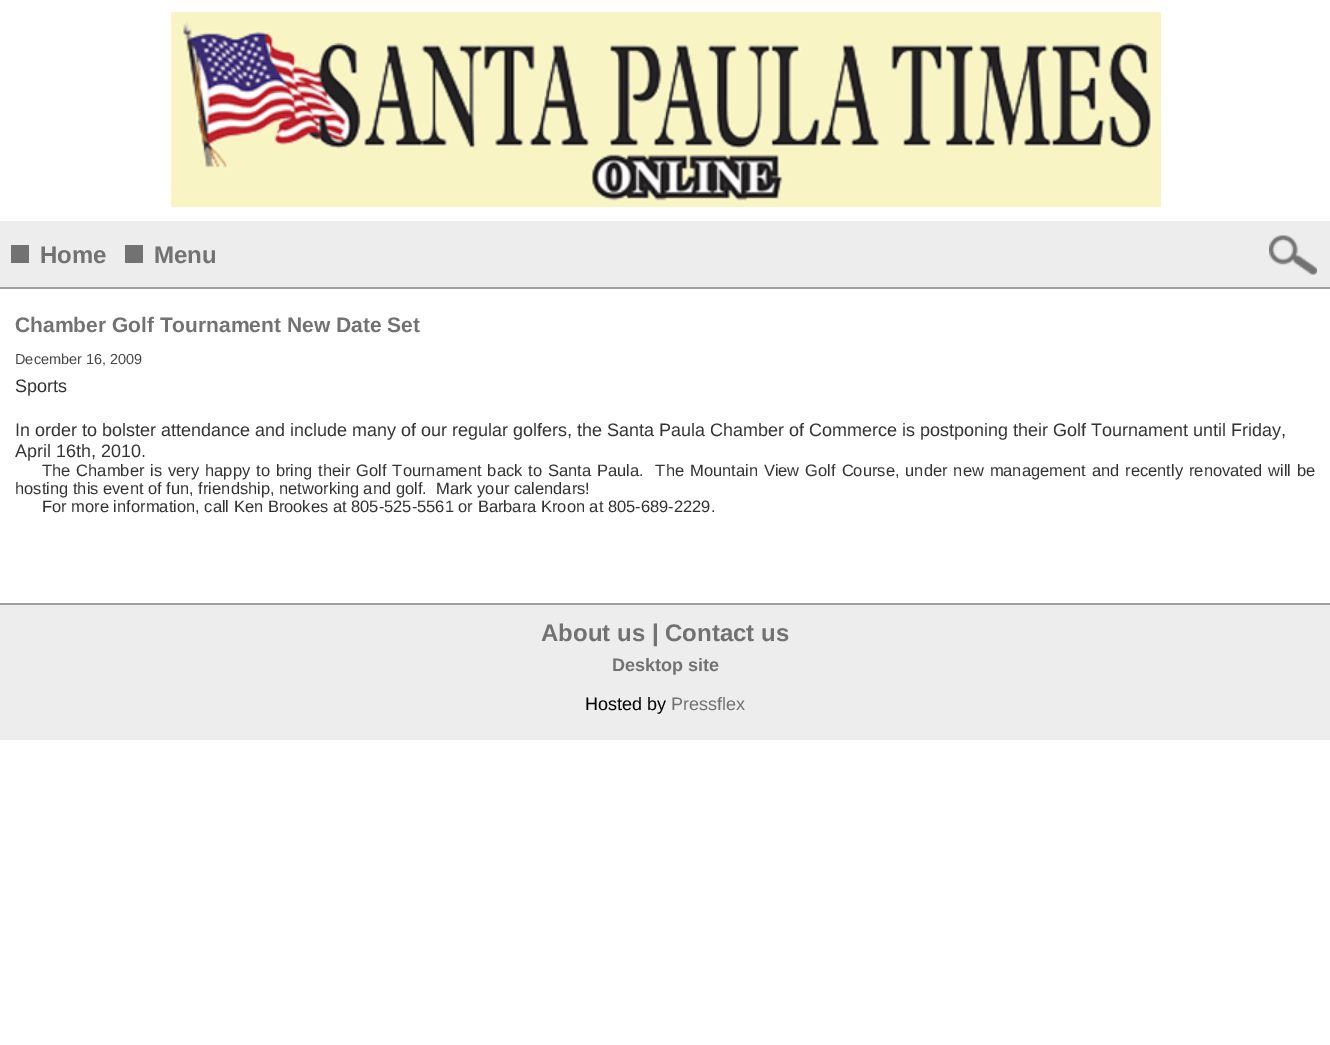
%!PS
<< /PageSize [1330 1045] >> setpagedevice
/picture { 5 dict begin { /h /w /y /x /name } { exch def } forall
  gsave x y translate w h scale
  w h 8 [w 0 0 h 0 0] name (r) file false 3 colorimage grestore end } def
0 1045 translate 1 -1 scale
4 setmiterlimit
1 setgray
0 0 1330 1045 rectfill
(img1.rgb) 171 12 990 195 picture
0.929 setgray
0 221 1330 66 rectfill
0.624 setgray
0 287 1330 2 rectfill
0.447 setgray
11 245 18 18 rectfill
/LiberationSans-Bold [24 0 0 -24 0 0] selectfont
40 263 moveto (Home) show
125 245 18 18 rectfill
154 263 moveto (Menu) show
(img2.rgb) 1269 235 48 40 picture
/LiberationSans-Bold [21 0 0 -21 0 0] selectfont
15 332 moveto (Chamber Golf Tournament New Date Set) show
/LiberationSans-Regular [14.5 0 0 -14.5 0 0] selectfont
0.278 setgray
15 364 moveto (December 16, 2009) show
/LiberationSans-Regular [18 0 0 -18 0 0] selectfont
0.2 setgray
15 392 moveto (Sports) show
15 436 moveto (In order to bolster attendance and include many of our regular golfers, the Santa Paula Chamber of Commerce is postponing their Golf Tournament until Friday,) show
15 457 moveto (April 16th, 2010.) show
/LiberationSans-Regular [16.5 0 0 -16.5 0 0] selectfont
42 476 moveto 1.35 0 32 (The Chamber is very happy to bring their Golf Tournament back to Santa Paula.  The Mountain View Golf Course, under new management and recently renovated will be) widthshow
15 494 moveto (hosting this event of fun, friendship, networking and golf.  Mark your calendars!) show
42 512 moveto (For more information, call Ken Brookes at 805-525-5561 or Barbara Kroon at 805-689-2229.) show
0.929 setgray
0 605 1330 135 rectfill
0.624 setgray
0 603 1330 2 rectfill
/LiberationSans-Bold [24 0 0 -24 0 0] selectfont
0.447 setgray
541 641 moveto (About us | Contact us) show
/LiberationSans-Bold [18 0 0 -18 0 0] selectfont
612 671 moveto (Desktop site) show
/LiberationSans-Regular [18 0 0 -18 0 0] selectfont
0 setgray
585 710 moveto (Hosted by) show
0.447 setgray
671 710 moveto (Pressflex) show
showpage
